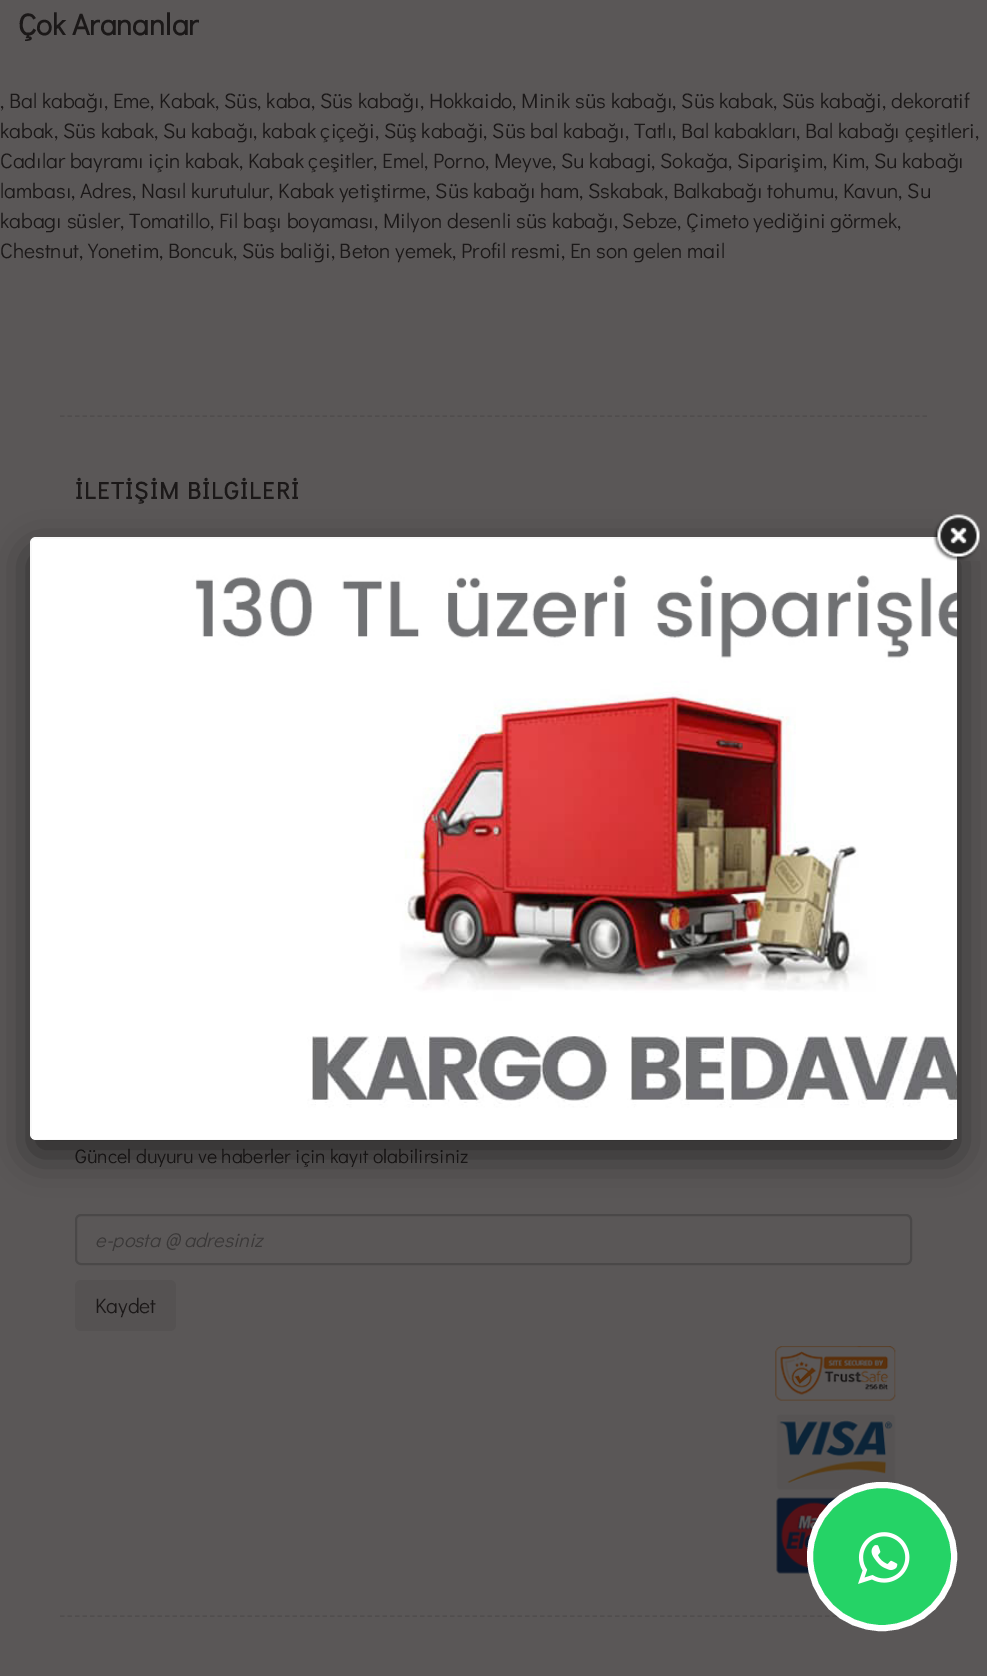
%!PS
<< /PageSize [987 1676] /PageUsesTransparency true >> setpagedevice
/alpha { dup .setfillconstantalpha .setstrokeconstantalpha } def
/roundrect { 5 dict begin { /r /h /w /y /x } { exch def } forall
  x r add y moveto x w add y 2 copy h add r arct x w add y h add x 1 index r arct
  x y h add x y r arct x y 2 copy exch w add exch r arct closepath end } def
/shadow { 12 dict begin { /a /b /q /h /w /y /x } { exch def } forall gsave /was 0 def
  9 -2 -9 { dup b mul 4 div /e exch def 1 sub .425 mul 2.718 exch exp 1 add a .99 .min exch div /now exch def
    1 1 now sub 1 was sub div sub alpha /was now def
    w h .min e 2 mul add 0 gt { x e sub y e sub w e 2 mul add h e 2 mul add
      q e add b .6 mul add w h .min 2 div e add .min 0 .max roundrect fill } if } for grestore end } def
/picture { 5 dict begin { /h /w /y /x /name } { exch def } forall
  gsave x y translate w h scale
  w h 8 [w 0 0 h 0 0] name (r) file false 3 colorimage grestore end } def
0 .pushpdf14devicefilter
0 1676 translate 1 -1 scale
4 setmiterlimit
0.353 0.341 0.341 setrgbcolor
0 0 987 1676 rectfill
/DidactGothic-Bold [30 0 0 -30 0 0] selectfont
0.106 0.094 0.094 setrgbcolor
18 35 moveto (Çok Arananlar) show
/DidactGothic-Regular [21 0 0 -21 0 0] selectfont
0 108 moveto (, Bal kabağı, Eme, Kabak, Süs, kaba, Süs kabağı, Hokkaido, Minik süs kabağı, Süs kabak, Süs kabaği, dekoratif) show
0 138 moveto (kabak, Süs kabak, Su kabağı, kabak çiçeği, Süş kabaği, Süs bal kabağı, Tatlı, Bal kabakları, Bal kabağı çeşitleri,) show
0 168 moveto (Cadılar bayramı için kabak, Kabak çeşitler, Emel, Porno, Meyve, Su kabagi, Sokağa, Siparişim, Kim, Su kabağı) show
0 198 moveto (lambası, Adres, Nasıl kurutulur, Kabak yetiştirme, Süs kabağı ham, Sskabak, Balkabağı tohumu, Kavun, Su) show
0 228 moveto (kabagı süsler, Tomatillo, Fil başı boyaması, Milyon desenli süs kabağı, Sebze, Çimeto yediğini görmek,) show
0 258 moveto (Chestnut, Yonetim, Boncuk, Süs baliği, Beton yemek, Profil resmi, En son gelen mail) show
0.314 0.302 0.302 setrgbcolor
1.5 setlinewidth
[4.5 3] 0 setdash
newpath 60 416 moveto 927 416 lineto stroke
newpath 60 1616 moveto 927 1616 lineto stroke
/DidactGothic-Bold [24 0 0 -24 0 0] selectfont
0.106 0.094 0.094 setrgbcolor
75 499 moveto 1.5 0 (İLETİŞİM BİLGİLERİ) ashow
/DidactGothic-Regular [19.5 0 0 -19.5 0 0] selectfont
75 1163 moveto (Güncel duyuru ve haberler için kayıt olabilirsiniz) show
0.329 0.318 0.318 setrgbcolor
newpath 81 1216 moveto 906 1216 lineto 908 1216 910 1219 910 1221 curveto 910 1261 lineto 911 1260 911 1259 911 1258 curveto 911 1220 lineto 911 1217 909 1215 906 1215 curveto 82 1215 lineto 80 1215 78 1216 77 1218 curveto 78 1217 80 1216 81 1216 curveto closepath fill
0.29 0.282 0.282 setrgbcolor
2 setlinewidth
[] 0 setdash
76 1215 835 49 5 roundrect stroke
/DidactGothic-Italic [20 0 0 -20 0 0] selectfont
0.227 0.22 0.22 setrgbcolor
95 1247 moveto (e-posta @ adresiniz) show
0.333 0.322 0.322 setrgbcolor
75 1280 101 51 6 roundrect fill
/DidactGothic-Regular [21 0 0 -21 0 0] selectfont
0.106 0.094 0.094 setrgbcolor
95 1313 moveto (Kaydet) show
(img1.rgb) 775 1345 121 229 picture
0 setgray
30 552 927 603 6 19 0.5 shadow
0.976 setgray
30 537 927 603 6 roundrect fill
(img3.rgb) 32 539 925 600 picture
(img2.rgb) 933 514 48 47 picture
0.145 0.827 0.4 setrgbcolor
810 1485 144 143 71.5 roundrect gsave fill grestore
1 setgray
6 setlinewidth
stroke
(img4.rgb) 858 1532 52 52 picture
.poppdf14devicefilter showpage
